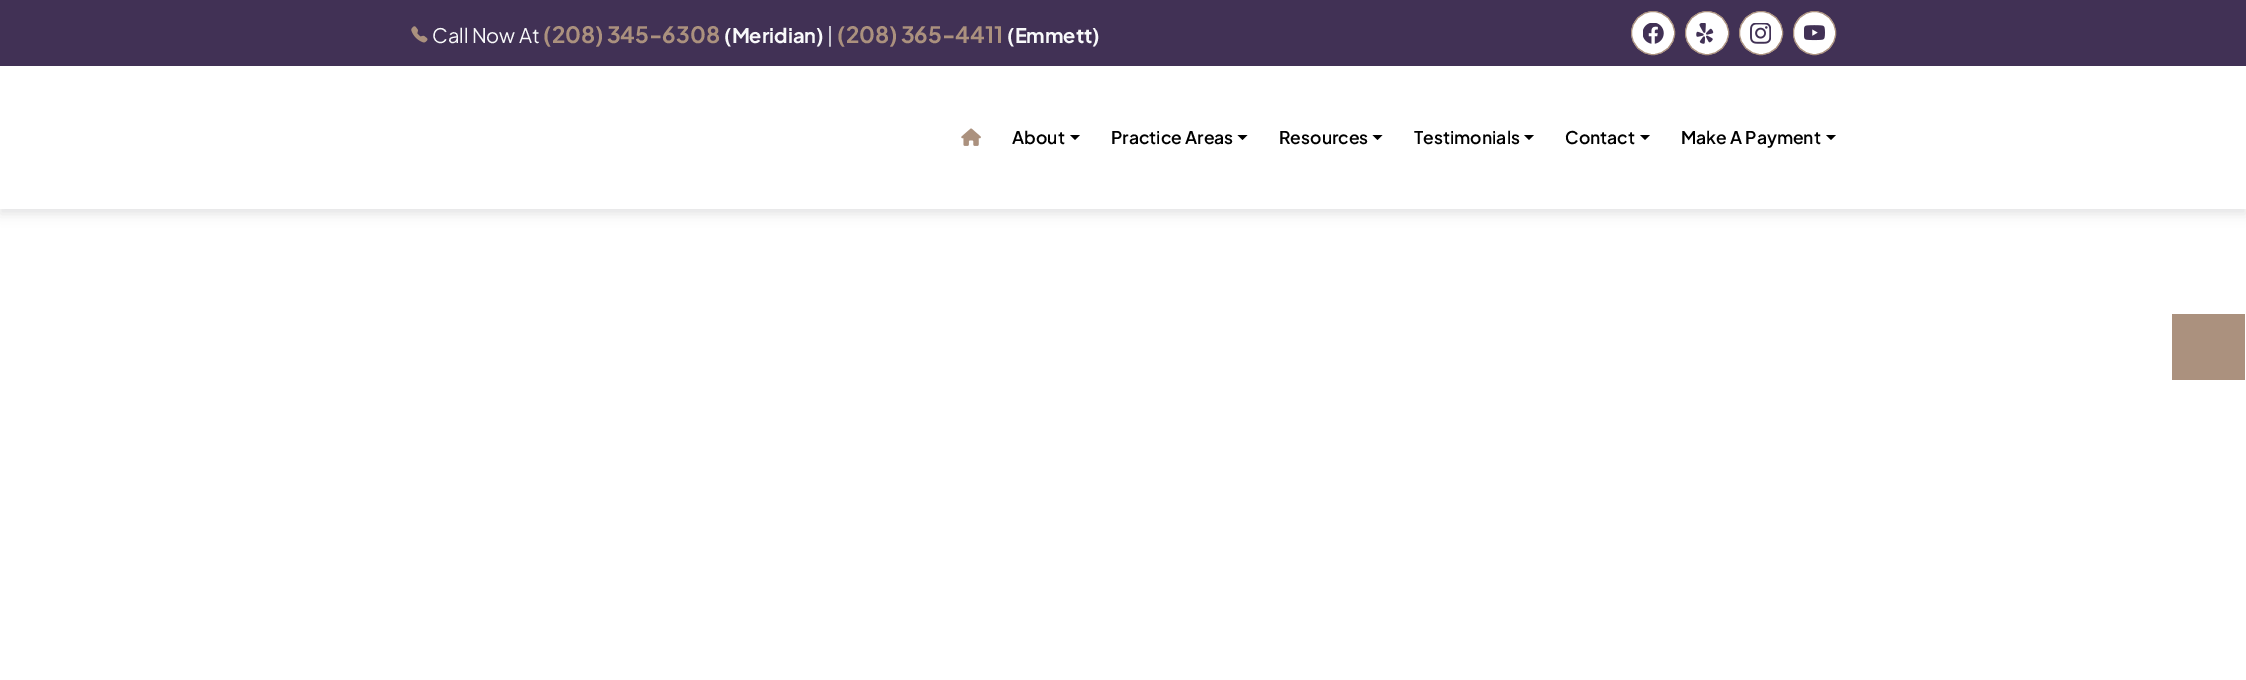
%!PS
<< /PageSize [2246 680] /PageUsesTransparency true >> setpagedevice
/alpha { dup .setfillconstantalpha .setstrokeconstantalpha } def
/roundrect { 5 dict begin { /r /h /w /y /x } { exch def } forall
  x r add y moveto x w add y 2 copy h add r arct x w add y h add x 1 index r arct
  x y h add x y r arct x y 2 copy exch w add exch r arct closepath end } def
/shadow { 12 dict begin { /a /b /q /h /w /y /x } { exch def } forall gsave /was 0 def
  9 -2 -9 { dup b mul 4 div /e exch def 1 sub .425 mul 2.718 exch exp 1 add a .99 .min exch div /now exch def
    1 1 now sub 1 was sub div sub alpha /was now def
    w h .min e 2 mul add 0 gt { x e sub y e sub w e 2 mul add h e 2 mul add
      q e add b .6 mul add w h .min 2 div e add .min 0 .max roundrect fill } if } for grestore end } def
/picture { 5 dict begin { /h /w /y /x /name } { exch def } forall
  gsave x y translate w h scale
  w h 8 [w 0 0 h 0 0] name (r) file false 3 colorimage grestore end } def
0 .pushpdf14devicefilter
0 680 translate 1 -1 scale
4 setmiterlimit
1 setgray
0 0 2246 680 rectfill
gsave
newpath 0 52 moveto 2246 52 lineto 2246 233 lineto 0 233 lineto closepath 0 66 moveto 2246 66 lineto 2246 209 lineto 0 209 lineto closepath eoclip newpath
0.863 0.863 0.867 setrgbcolor
0 71 2246 143 0 6 0.8 shadow
grestore
0.255 0.192 0.333 setrgbcolor
0 0 2246 66 rectfill
(img1.rgb) 411 26 17 17 picture
/PlusJakartaSans-Regular [20 0 0 -20 0 0] selectfont
0.973 0.976 0.98 setrgbcolor
432 43 moveto (Call Now At) show
/PlusJakartaSans-Bold [22.5 0 0 -22.5 0 0] selectfont
0.671 0.569 0.494 setrgbcolor
543 43 moveto -1 0 32 (\(208\) 345-6308) widthshow
/PlusJakartaSans-Bold [20 0 0 -20 0 0] selectfont
0.973 0.976 0.98 setrgbcolor
724 43 moveto (\(Meridian\)) show
/PlusJakartaSans-Regular [20 0 0 -20 0 0] selectfont
827 43 moveto (|) show
/PlusJakartaSans-Bold [22.5 0 0 -22.5 0 0] selectfont
0.671 0.569 0.494 setrgbcolor
837 43 moveto -1 0 32 (\(208\) 365-4411) widthshow
/PlusJakartaSans-Bold [20 0 0 -20 0 0] selectfont
0.973 0.976 0.98 setrgbcolor
1007 43 moveto (\(Emmett\)) show
1 setgray
newpath 1653 33 21.5 0 360 arc closepath gsave fill grestore
0.671 0.569 0.494 setrgbcolor
stroke
(img2.rgb) 1643 23 21 21 picture
1 setgray
newpath 1707 33 21.5 0 360 arc closepath gsave fill grestore
0.671 0.569 0.494 setrgbcolor
stroke
(img3.rgb) 1696 23 18 21 picture
1 setgray
newpath 1761 33 21.5 0 360 arc closepath gsave fill grestore
0.671 0.569 0.494 setrgbcolor
stroke
(img4.rgb) 1750 23 21 21 picture
1 setgray
1793.5 11.5 42 43 21 roundrect gsave fill grestore
0.671 0.569 0.494 setrgbcolor
stroke
(img5.rgb) 1804 25 21 16 picture
(img6.rgb) 961 128 20 18 picture
/PlusJakartaSans-SemiBold [17.5 0 0 -17.5 0 0] selectfont
0 setgray
1012 144 moveto (About) show
newpath 1070 135 moveto 1080 135 lineto 1075 140 lineto closepath fill
1111 144 moveto (Practice Areas) show
newpath 1237.5 135 moveto 1247.5 135 lineto 1242.5 140 lineto closepath fill
1279 144 moveto (Resources) show
newpath 1372.5 135 moveto 1382.5 135 lineto 1377.5 140 lineto closepath fill
1414 144 moveto (Testimonials) show
newpath 1524 135 moveto 1534 135 lineto 1529 140 lineto closepath fill
1565 144 moveto (Contact) show
newpath 1640 135 moveto 1650 135 lineto 1645 140 lineto closepath fill
1681 144 moveto (Make A Payment) show
newpath 1826 135 moveto 1836 135 lineto 1831 140 lineto closepath fill
0.671 0.569 0.494 setrgbcolor
2172 314 73 66 rectfill
.poppdf14devicefilter showpage
